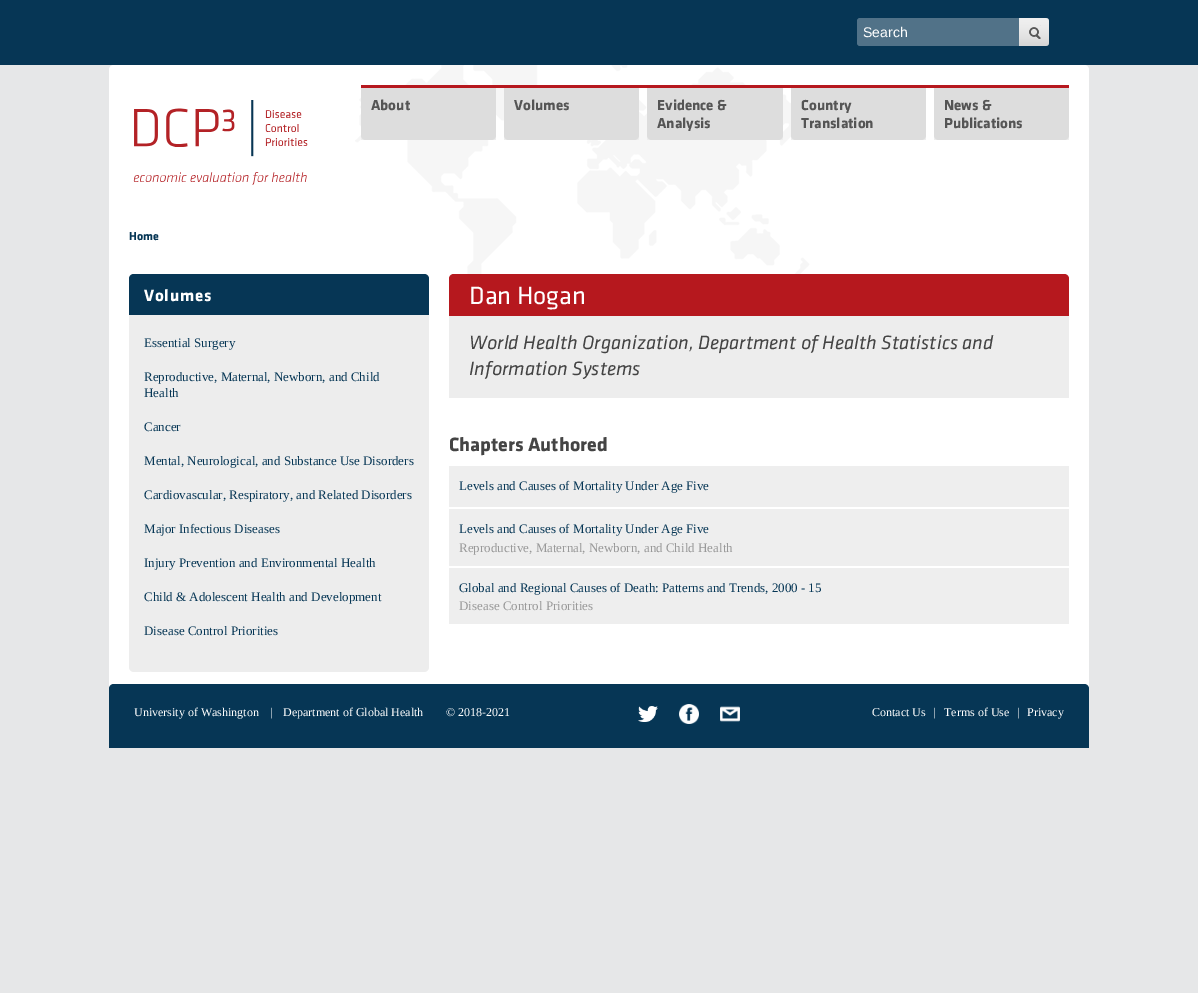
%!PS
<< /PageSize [1198 993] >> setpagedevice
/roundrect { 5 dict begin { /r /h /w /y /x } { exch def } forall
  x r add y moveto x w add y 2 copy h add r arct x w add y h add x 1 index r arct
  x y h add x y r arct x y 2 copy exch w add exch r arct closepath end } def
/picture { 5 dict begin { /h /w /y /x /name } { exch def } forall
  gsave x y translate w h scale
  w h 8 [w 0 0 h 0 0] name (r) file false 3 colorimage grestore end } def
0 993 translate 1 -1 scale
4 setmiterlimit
0.902 0.906 0.91 setrgbcolor
0 0 1198 993 rectfill
0.024 0.212 0.333 setrgbcolor
0 0 1198 65 rectfill
0.318 0.447 0.533 setrgbcolor
857 18 192 28 3 roundrect fill
(img1.rgb) 1019 18 30 28 picture
/LiberationSans-Regular [14 0 0 -14 0 0] selectfont
1 setgray
863 37 moveto (Search) show
newpath 114 65 moveto 1084 65 lineto 1087 65 1089 67 1089 70 curveto 1089 748 lineto 109 748 lineto 109 70 lineto 109 67 111 65 114 65 curveto closepath fill
(img2.rgb) 355 65 455 209 picture
(img3.rgb) 133 100 175 85 picture
0.714 0.094 0.118 setrgbcolor
361 85 708 3 rectfill
0.933 setgray
361 135 135 5 rectfill
0.867 setgray
newpath 361 88 moveto 496 88 lineto 496 135 lineto 496 138 494 140 491 140 curveto 366 140 lineto 363 140 361 138 361 135 curveto closepath fill
/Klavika-Bold [15 0 0 -15 0 0] selectfont
0.333 setgray
371 110 moveto (About) show
0.933 setgray
504 135 135 5 rectfill
0.867 setgray
newpath 504 88 moveto 639 88 lineto 639 135 lineto 639 138 637 140 634 140 curveto 509 140 lineto 506 140 504 138 504 135 curveto closepath fill
0.333 setgray
514 110 moveto (Volumes) show
0.933 setgray
647 135 136 5 rectfill
0.867 setgray
newpath 647 88 moveto 783 88 lineto 783 135 lineto 783 138 781 140 778 140 curveto 652 140 lineto 649 140 647 138 647 135 curveto closepath fill
0.333 setgray
657 110 moveto (Evidence &) show
657 128 moveto (Analysis) show
0.933 setgray
791 135 135 5 rectfill
0.867 setgray
newpath 791 88 moveto 926 88 lineto 926 135 lineto 926 138 924 140 921 140 curveto 796 140 lineto 793 140 791 138 791 135 curveto closepath fill
0.333 setgray
801 110 moveto (Country) show
801 128 moveto (Translation) show
0.933 setgray
934 135 135 5 rectfill
0.867 setgray
newpath 934 88 moveto 1069 88 lineto 1069 135 lineto 1069 138 1067 140 1064 140 curveto 939 140 lineto 936 140 934 138 934 135 curveto closepath fill
0.333 setgray
944 110 moveto (News &) show
944 128 moveto (Publications) show
/Klavika-Bold [12 0 0 -12 0 0] selectfont
0.024 0.212 0.333 setrgbcolor
129 240 moveto (Home) show
0.929 setgray
129 274 300 398 5 roundrect fill
0.024 0.212 0.333 setrgbcolor
newpath 134 274 moveto 424 274 lineto 427 274 429 276 429 279 curveto 429 315 lineto 129 315 lineto 129 279 lineto 129 276 131 274 134 274 curveto closepath fill
/Klavika-Bold [17 0 0 -17 0 0] selectfont
1 setgray
144 301 moveto 0.75 0 (Volumes) ashow
/LiberationSerif-Regular [13 0 0 -13 0 0] selectfont
0.024 0.212 0.333 setrgbcolor
144 347 moveto (Essential Surgery) show
144 381 moveto (Reproductive, Maternal, Newborn, and Child) show
144 397 moveto (Health) show
144 431 moveto (Cancer) show
144 465 moveto (Mental, Neurological, and Substance Use Disorders) show
144 499 moveto (Cardiovascular, Respiratory, and Related Disorders) show
144 533 moveto (Major Infectious Diseases) show
144 567 moveto (Injury Prevention and Environmental Health) show
144 601 moveto (Child & Adolescent Health and Development) show
144 635 moveto (Disease Control Priorities) show
0.714 0.094 0.118 setrgbcolor
newpath 454 274 moveto 1064 274 lineto 1067 274 1069 276 1069 279 curveto 1069 316 lineto 449 316 lineto 449 279 lineto 449 276 451 274 454 274 curveto closepath fill
/Klavika-Regular [26 0 0 -26 0 0] selectfont
1 setgray
469 304 moveto (Dan Hogan) show
0.929 setgray
449 316 620 82 rectfill
/Klavika-Italic [20 0 0 -20 0 0] selectfont
0.267 setgray
469 349 moveto (World Health Organization, Department of Health Statistics and) show
469 375 moveto (Information Systems) show
/Klavika-Bold [20 0 0 -20 0 0] selectfont
449 451 moveto (Chapters Authored) show
0.933 setgray
449 466 620 41 rectfill
/LiberationSerif-Regular [13 0 0 -13 0 0] selectfont
0.024 0.212 0.333 setrgbcolor
459 490 moveto (Levels and Causes of Mortality Under Age Five) show
0.933 setgray
449 509 620 57 rectfill
0.024 0.212 0.333 setrgbcolor
459 533 moveto (Levels and Causes of Mortality Under Age Five) show
0.6 setgray
459 552 moveto (Reproductive, Maternal, Newborn, and Child Health) show
0.933 setgray
449 568 620 56 rectfill
0.024 0.212 0.333 setrgbcolor
459 592 moveto (Global and Regional Causes of Death: Patterns and Trends, 2000 - 15) show
0.6 setgray
459 610 moveto (Disease Control Priorities) show
0.024 0.212 0.333 setrgbcolor
newpath 114 684 moveto 1084 684 lineto 1087 684 1089 686 1089 689 curveto 1089 748 lineto 109 748 lineto 109 689 lineto 109 686 111 684 114 684 curveto closepath fill
/LiberationSerif-Regular [12 0 0 -12 0 0] selectfont
1 setgray
134 716 moveto (University of Washington) show
270 716 moveto (|) show
283 716 moveto (Department of Global Health) show
446 716 moveto (© 2018-2021) show
(img4.rgb) 638 706 20 16 picture
(img5.rgb) 679 704 20 20 picture
(img6.rgb) 720 706 20 16 picture
872 716 moveto (Contact Us) show
933 716 moveto (|) show
944 716 moveto (Terms of Use) show
1017 716 moveto (|) show
1027 716 moveto (Privacy) show
showpage
